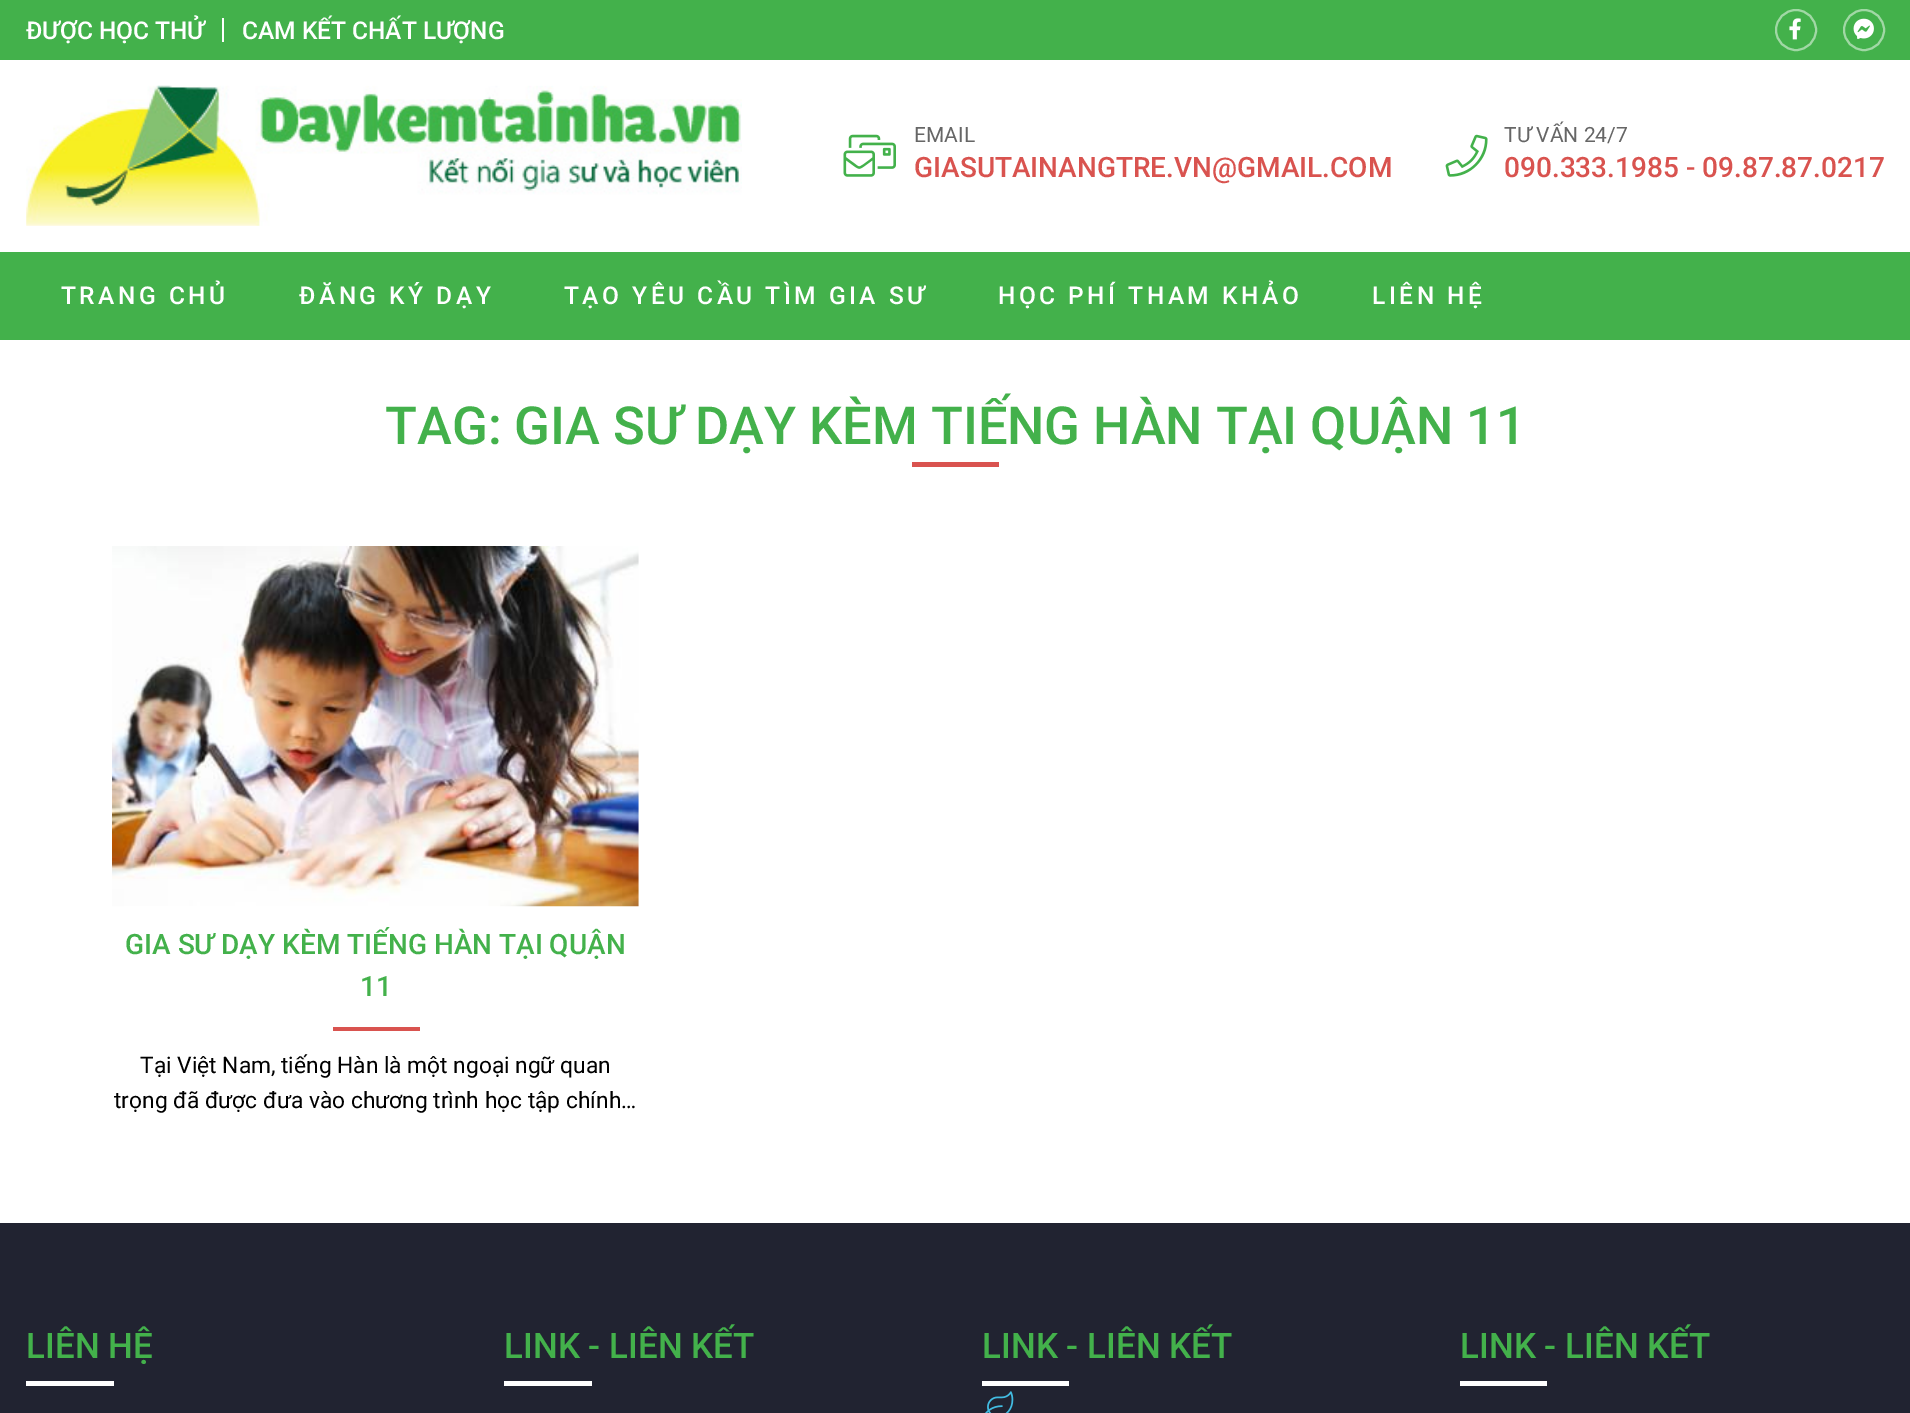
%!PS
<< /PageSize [1910 1413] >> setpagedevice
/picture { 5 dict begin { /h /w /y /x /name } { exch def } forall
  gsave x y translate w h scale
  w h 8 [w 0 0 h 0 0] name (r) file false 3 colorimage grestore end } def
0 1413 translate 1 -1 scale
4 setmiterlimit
1 setgray
0 0 1910 1413 rectfill
0.263 0.694 0.294 setrgbcolor
0 0 1910 60 rectfill
1 setgray
222 18 2 24 rectfill
/Roboto-Medium [24.5 0 0 -24.5 0 0] selectfont
26 39 moveto (ĐƯỢC HỌC THỬ) show
242 39 moveto (CAM KẾT CHẤT LƯỢNG) show
0.631 0.847 0.647 setrgbcolor
2 setlinewidth
newpath 1796 30 20 0 360 arc closepath stroke
(img1.rgb) 1789 18 12 22 picture
newpath 1864 30 20 0 360 arc closepath stroke
(img2.rgb) 1853 18 21 21 picture
(img3.rgb) 26 85 716 141 picture
(img4.rgb) 843 134 53 43 picture
/Roboto-Regular [21 0 0 -21 0 0] selectfont
0.4 setgray
914 142 moveto (EMAIL) show
/Roboto-Medium [28 0 0 -28 0 0] selectfont
0.851 0.325 0.31 setrgbcolor
914 177 moveto (GIASUTAINANGTRE.VN@GMAIL.COM) show
(img5.rgb) 1445 134 43 43 picture
/Roboto-Regular [21 0 0 -21 0 0] selectfont
0.4 setgray
1504 142 moveto (TƯ VẤN 24/7) show
/Roboto-Medium [28 0 0 -28 0 0] selectfont
0.851 0.325 0.31 setrgbcolor
1504 177 moveto (090.333.1985 - 09.87.87.0217) show
0.263 0.694 0.294 setrgbcolor
0 252 1910 88 rectfill
/Roboto-Medium [24.5 0 0 -24.5 0 0] selectfont
1 setgray
61 304 moveto 3.5 0 (TRANG CHỦ) ashow
299 304 moveto 3.5 0 (ĐĂNG KÝ DẠY) ashow
564 304 moveto 3.5 0 (TẠO YÊU CẦU TÌM GIA SƯ) ashow
998 304 moveto 3.5 0 (HỌC PHÍ THAM KHẢO) ashow
1372 304 moveto 3.5 0 (LIÊN HỆ) ashow
/Roboto-Medium [52.5 0 0 -52.5 0 0] selectfont
0.263 0.694 0.294 setrgbcolor
385 444 moveto (TAG: GIA SƯ DẠY KÈM TIẾNG HÀN TẠI QUẬN 11) show
0.851 0.325 0.31 setrgbcolor
912 462 87 5 rectfill
(img6.rgb) 112 546 527 361 picture
/Roboto-Medium [28 0 0 -28 0 0] selectfont
0.263 0.694 0.294 setrgbcolor
125 954 moveto (GIA SƯ DẠY KÈM TIẾNG HÀN TẠI QUẬN) show
360 996 moveto (11) show
0.851 0.325 0.31 setrgbcolor
333 1027 87 4 rectfill
/Roboto-Regular [22.75 0 0 -22.75 0 0] selectfont
0 setgray
140 1073 moveto (Tại Việt Nam, tiếng Hàn là một ngoại ngữ quan) show
114 1108 moveto (trọng đã được đưa vào chương trình học tập chính…) show
0.129 0.137 0.192 setrgbcolor
0 1223 1910 190 rectfill
/Roboto-Medium [35 0 0 -35 0 0] selectfont
0.263 0.694 0.294 setrgbcolor
26 1358 moveto (LIÊN HỆ) show
1 setgray
26 1381 88 5 rectfill
0.263 0.694 0.294 setrgbcolor
504 1358 moveto (LINK - LIÊN KẾT) show
1 setgray
504 1381 88 5 rectfill
0.263 0.694 0.294 setrgbcolor
982 1358 moveto (LINK - LIÊN KẾT) show
1 setgray
982 1381 87 5 rectfill
(img7.rgb) 985 1391 29 22 picture
0.263 0.694 0.294 setrgbcolor
1460 1358 moveto (LINK - LIÊN KẾT) show
1 setgray
1460 1381 87 5 rectfill
showpage
